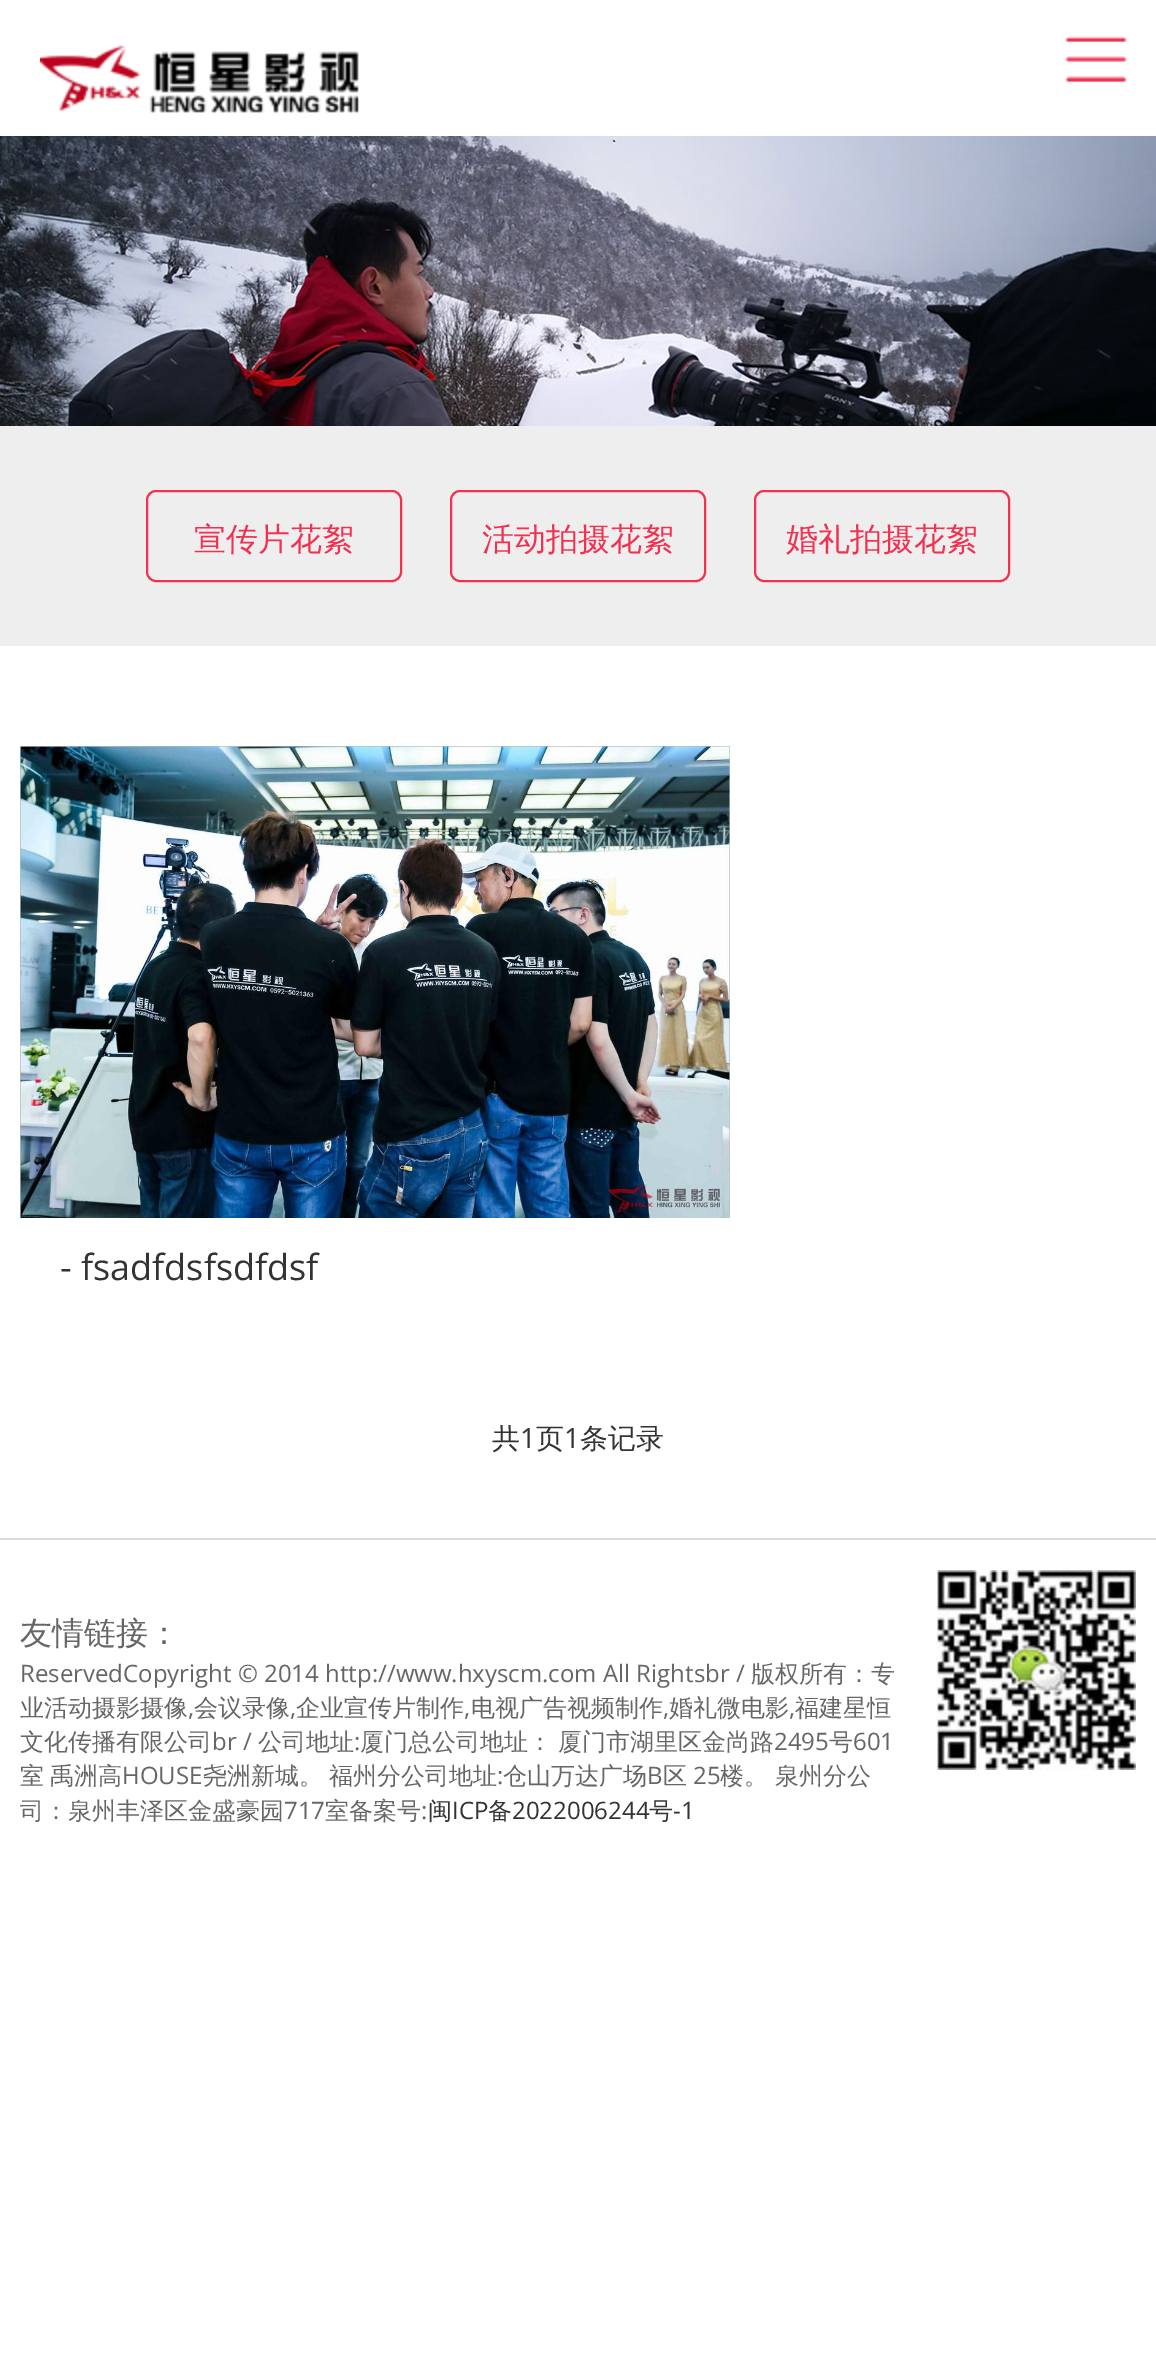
%!PS
<< /PageSize [1156 2375] >> setpagedevice
/roundrect { 5 dict begin { /r /h /w /y /x } { exch def } forall
  x r add y moveto x w add y 2 copy h add r arct x w add y h add x 1 index r arct
  x y h add x y r arct x y 2 copy exch w add exch r arct closepath end } def
/picture { 5 dict begin { /h /w /y /x /name } { exch def } forall
  gsave x y translate w h scale
  w h 8 [w 0 0 h 0 0] name (r) file false 3 colorimage grestore end } def
0 2375 translate 1 -1 scale
4 setmiterlimit
1 setgray
0 0 1156 2375 rectfill
(img1.rgb) 40 45 319 68 picture
(img2.rgb) 1065 36 62 46 picture
(img3.rgb) 0 136 1156 290 picture
0.933 setgray
0 426 1156 220 rectfill
0.949 0.188 0.314 setrgbcolor
2 setlinewidth
147 491 254 90 9 roundrect stroke
/WenQuanYiZenHei-Medium [32 0 0 -32 0 0] selectfont
194 550 moveto (宣传片花絮) show
451 491 254 90 9 roundrect stroke
482 550 moveto (活动拍摄花絮) show
755 491 254 90 9 roundrect stroke
786 550 moveto (婚礼拍摄花絮) show
(img4.rgb) 20 746 710 472 picture
/OpenSans-Regular [36 0 0 -36 0 0] selectfont
0.2 setgray
60 1280 moveto (- fsadfdsfsdfdsf) show
/WenQuanYiZenHei-Medium [28 0 0 -28 0 0] selectfont
492 1448 moveto (共) show
/OpenSans-Regular [28 0 0 -28 0 0] selectfont
520 1448 moveto (1) show
/WenQuanYiZenHei-Medium [28 0 0 -28 0 0] selectfont
536 1448 moveto (页) show
/OpenSans-Regular [28 0 0 -28 0 0] selectfont
564 1448 moveto (1) show
/WenQuanYiZenHei-Medium [28 0 0 -28 0 0] selectfont
580 1448 moveto (条记录) show
0.875 0.863 0.863 setrgbcolor
0 1538 1156 2 rectfill
/WenQuanYiZenHei-Medium [32 0 0 -32 0 0] selectfont
0.4 setgray
20 1644 moveto (友情链接：) show
/OpenSans-Regular [24 0 0 -24 0 0] selectfont
20 1682 moveto (ReservedCopyright © 2014 http://www.hxyscm.com All Rightsbr /) show
/WenQuanYiZenHei-Medium [24 0 0 -24 0 0] selectfont
751 1682 moveto (版权所有：专) show
20 1716 moveto (业活动摄影摄像) show
/OpenSans-Regular [24 0 0 -24 0 0] selectfont
188 1716 moveto (,) show
/WenQuanYiZenHei-Medium [24 0 0 -24 0 0] selectfont
194 1716 moveto (会议录像) show
/OpenSans-Regular [24 0 0 -24 0 0] selectfont
290 1716 moveto (,) show
/WenQuanYiZenHei-Medium [24 0 0 -24 0 0] selectfont
296 1716 moveto (企业宣传片制作) show
/OpenSans-Regular [24 0 0 -24 0 0] selectfont
464 1716 moveto (,) show
/WenQuanYiZenHei-Medium [24 0 0 -24 0 0] selectfont
471 1716 moveto (电视广告视频制作) show
/OpenSans-Regular [24 0 0 -24 0 0] selectfont
663 1716 moveto (,) show
/WenQuanYiZenHei-Medium [24 0 0 -24 0 0] selectfont
669 1716 moveto (婚礼微电影) show
/OpenSans-Regular [24 0 0 -24 0 0] selectfont
789 1716 moveto (,) show
/WenQuanYiZenHei-Medium [24 0 0 -24 0 0] selectfont
795 1716 moveto (福建星恒) show
20 1750 moveto (文化传播有限公司) show
/OpenSans-Regular [24 0 0 -24 0 0] selectfont
212 1750 moveto (br /) show
/WenQuanYiZenHei-Medium [24 0 0 -24 0 0] selectfont
258 1750 moveto (公司地址) show
/OpenSans-Regular [24 0 0 -24 0 0] selectfont
354 1750 moveto (:) show
/WenQuanYiZenHei-Medium [24 0 0 -24 0 0] selectfont
360 1750 moveto (厦门总公司地址：) show
558 1750 moveto (厦门市湖里区金尚路) show
/OpenSans-Regular [24 0 0 -24 0 0] selectfont
774 1750 moveto (2495) show
/WenQuanYiZenHei-Medium [24 0 0 -24 0 0] selectfont
829 1750 moveto (号) show
/OpenSans-Regular [24 0 0 -24 0 0] selectfont
853 1750 moveto (601) show
/WenQuanYiZenHei-Medium [24 0 0 -24 0 0] selectfont
20 1784 moveto -1 0 32 (室 禹洲高) widthshow
/OpenSans-Regular [24 0 0 -24 0 0] selectfont
122 1784 moveto (HOUSE) show
/WenQuanYiZenHei-Medium [24 0 0 -24 0 0] selectfont
203 1784 moveto (尧洲新城。) show
329 1784 moveto (福州分公司地址) show
/OpenSans-Regular [24 0 0 -24 0 0] selectfont
497 1784 moveto (:) show
/WenQuanYiZenHei-Medium [24 0 0 -24 0 0] selectfont
503 1784 moveto (仓山万达广场) show
/OpenSans-Regular [24 0 0 -24 0 0] selectfont
647 1784 moveto (B) show
/WenQuanYiZenHei-Medium [24 0 0 -24 0 0] selectfont
663 1784 moveto (区) show
/OpenSans-Regular [24 0 0 -24 0 0] selectfont
693 1784 moveto (25) show
/WenQuanYiZenHei-Medium [24 0 0 -24 0 0] selectfont
720 1784 moveto (楼。) show
775 1784 moveto (泉州分公) show
20 1819 moveto (司：泉州丰泽区金盛豪园) show
/OpenSans-Regular [24 0 0 -24 0 0] selectfont
284 1819 moveto (717) show
/WenQuanYiZenHei-Medium [24 0 0 -24 0 0] selectfont
325 1819 moveto (室备案号) show
/OpenSans-Regular [24 0 0 -24 0 0] selectfont
421 1819 moveto (:) show
/WenQuanYiZenHei-Medium [24 0 0 -24 0 0] selectfont
0.2 setgray
428 1819 moveto (闽) show
/OpenSans-Regular [24 0 0 -24 0 0] selectfont
452 1819 moveto (ICP) show
/WenQuanYiZenHei-Medium [24 0 0 -24 0 0] selectfont
488 1819 moveto (备) show
/OpenSans-Regular [24 0 0 -24 0 0] selectfont
512 1819 moveto (2022006244) show
/WenQuanYiZenHei-Medium [24 0 0 -24 0 0] selectfont
649 1819 moveto (号) show
/OpenSans-Regular [24 0 0 -24 0 0] selectfont
673 1819 moveto (-1) show
(img5.rgb) 936 1570 200 200 picture
showpage
